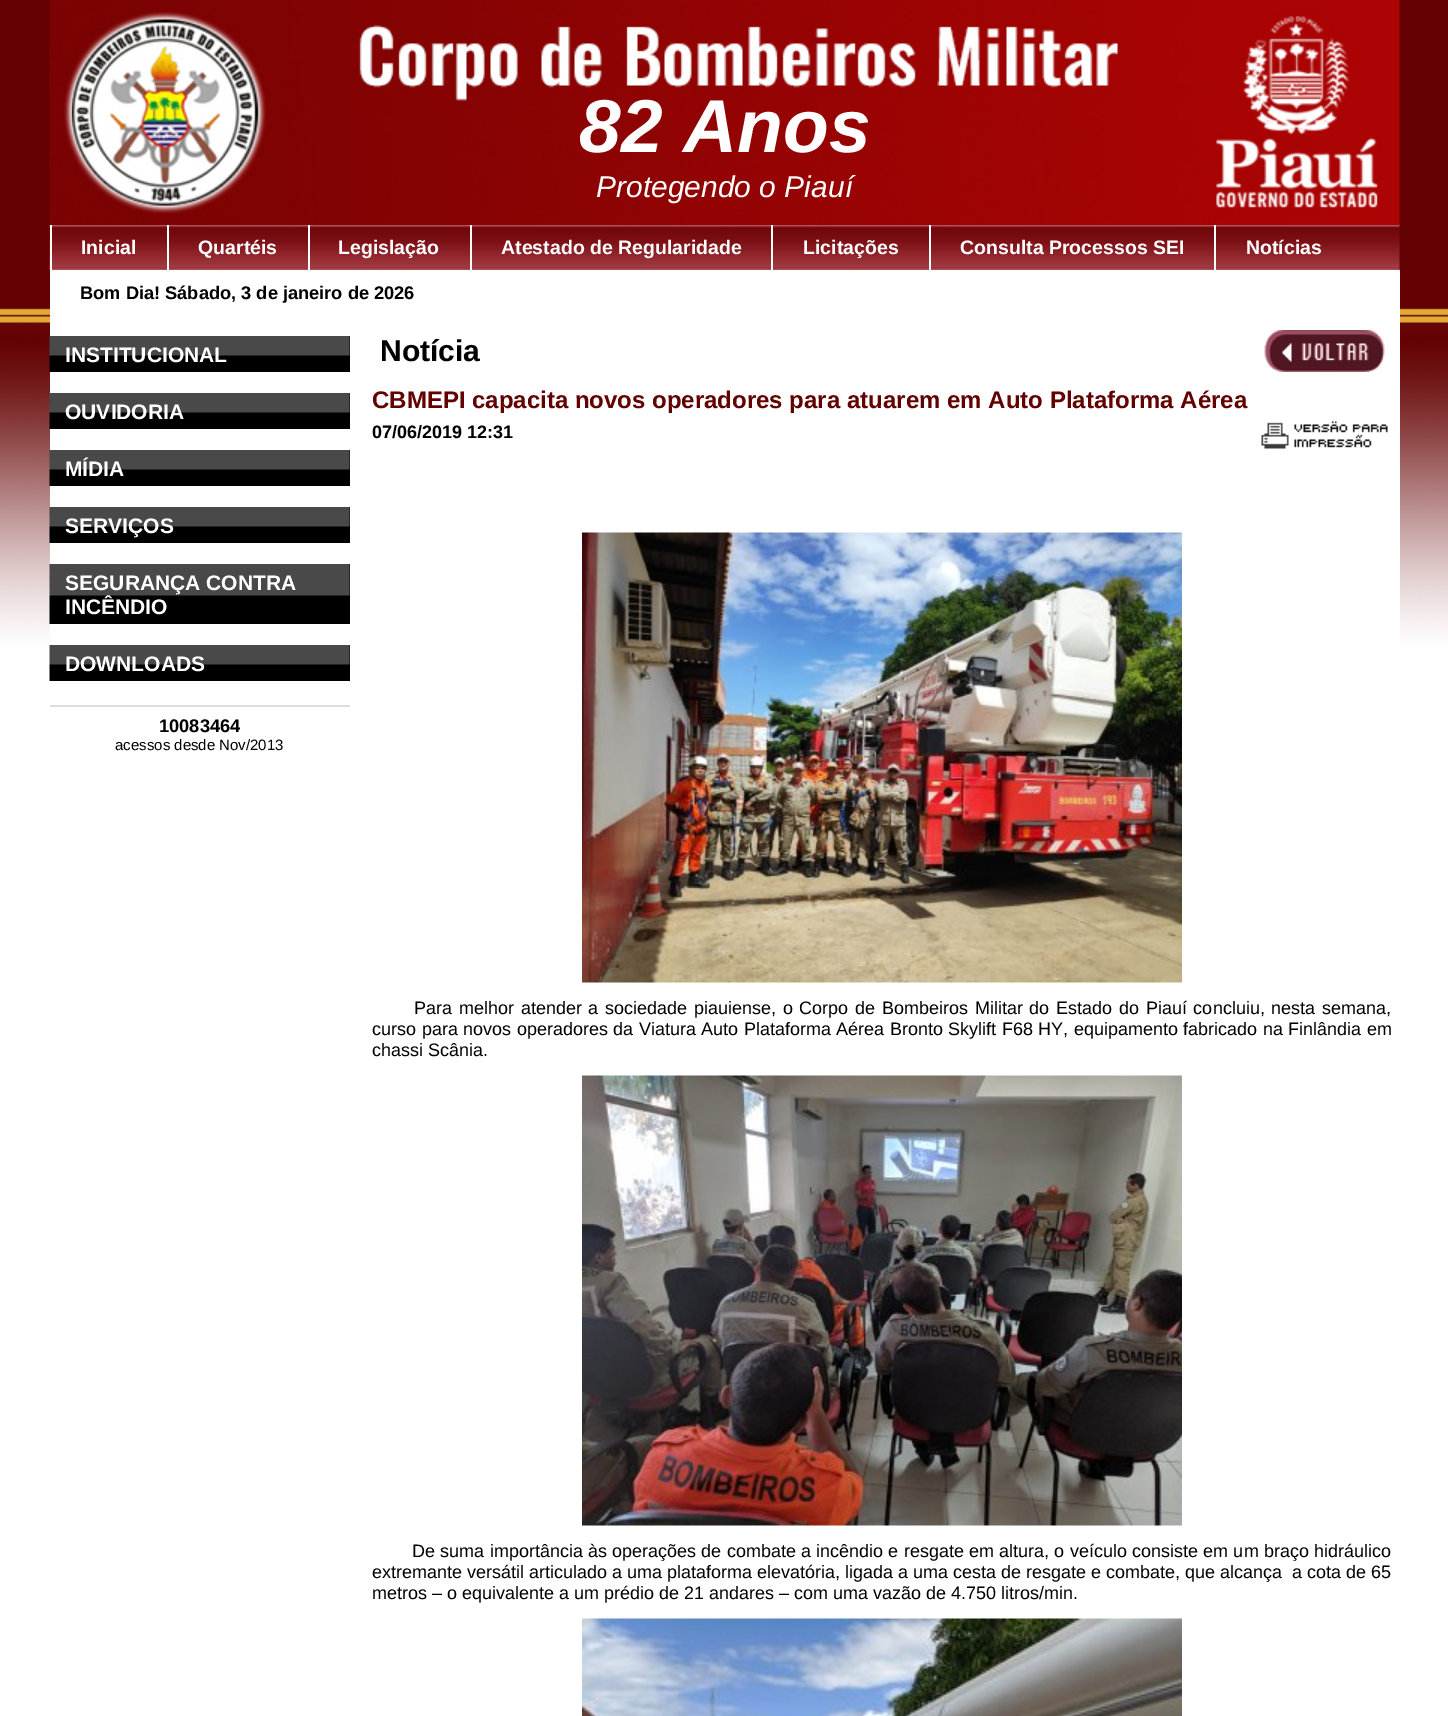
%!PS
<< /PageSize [1448 1716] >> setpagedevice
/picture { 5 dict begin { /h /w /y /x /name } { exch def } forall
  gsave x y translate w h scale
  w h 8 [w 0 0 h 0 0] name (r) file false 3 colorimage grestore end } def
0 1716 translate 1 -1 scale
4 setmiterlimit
1 setgray
0 0 1448 1716 rectfill
(img1.rgb) 0 0 1448 643 picture
(img2.rgb) 49 0 1351 225 picture
/LiberationSans-BoldItalic [75 0 0 -75 0 0] selectfont
579 152 moveto (82 Anos) show
/LiberationSans-Italic [30 0 0 -30 0 0] selectfont
596 197 moveto (Protegendo o Piauí) show
(img3.rgb) 49 225 1351 45 picture
50 225 2 45 rectfill
/LiberationSans-Bold [19.5 0 0 -19.5 0 0] selectfont
81 254 moveto (Inicial) show
167 225 2 45 rectfill
198 254 moveto (Quartéis) show
308 225 2 45 rectfill
338 254 moveto (Legislação) show
470 225 2 45 rectfill
501 254 moveto (Atestado de Regularidade) show
771 225 2 45 rectfill
803 254 moveto (Licitações) show
929 225 2 45 rectfill
960 254 moveto (Consulta Processos SEI) show
1214 225 2 45 rectfill
1246 254 moveto (Notícias) show
50 270 1350 45 rectfill
/LiberationSans-Bold [18.25 0 0 -18.25 0 0] selectfont
0 setgray
80 299 moveto (Bom Dia! Sábado, 3 de janeiro de 2026) show
1 setgray
50 315 1350 328 rectfill
0 setgray
349 336 1 36 rectfill
(img4.rgb) 49 336 301 36 picture
/LiberationSans-Bold [21 0 0 -21 0 0] selectfont
1 setgray
65 362 moveto (INSTITUCIONAL) show
0 setgray
349 393 1 36 rectfill
(img5.rgb) 49 393 301 36 picture
1 setgray
65 419 moveto (OUVIDORIA) show
0 setgray
349 450 1 36 rectfill
(img6.rgb) 49 450 301 36 picture
1 setgray
65 476 moveto (MÍDIA) show
0 setgray
349 507 1 36 rectfill
(img7.rgb) 49 507 301 36 picture
1 setgray
65 533 moveto (SERVIÇOS) show
0 setgray
349 564 1 60 rectfill
(img8.rgb) 49 564 301 60 picture
1 setgray
65 590 moveto (SEGURANÇA CONTRA) show
65 614 moveto (INCÊNDIO) show
0 setgray
349 645 1 36 rectfill
(img9.rgb) 49 645 301 36 picture
1 setgray
65 671 moveto (DOWNLOADS) show
0.867 setgray
50 705 300 2 rectfill
/LiberationSans-Bold [18.25 0 0 -18.25 0 0] selectfont
0 setgray
159 732 moveto (10083464) show
/LiberationSans-Regular [15 0 0 -15 0 0] selectfont
115 750 moveto (acessos desde Nov/2013) show
/LiberationSans-Bold [30 0 0 -30 0 0] selectfont
380 361 moveto (Notícia) show
(img10.rgb) 1264 330 121 42 picture
/LiberationSans-Bold [24 0 0 -24 0 0] selectfont
0.388 0.004 0.004 setrgbcolor
372 408 moveto (CBMEPI capacita novos operadores para atuarem em Auto Plataforma Aérea) show
/LiberationSans-Bold [18 0 0 -18 0 0] selectfont
0 setgray
372 438 moveto (07/06/2019 12:31) show
(img11.rgb) 1261 421 127 28 picture
(img12.rgb) 582 532 600 451 picture
/LiberationSans-Regular [18 0 0 -18 0 0] selectfont
414 1014 moveto 1.75 0 32 (Para melhor atender a sociedade piauiense, o Corpo de Bombeiros Militar do Estado do Piauí concluiu, nesta semana,) widthshow
372 1035 moveto 0.5 0 32 (curso para novos operadores da Viatura Auto Plataforma Aérea Bronto Skylift F68 HY, equipamento fabricado na Finlândia em) widthshow
372 1056 moveto (chassi Scânia.) show
(img13.rgb) 582 1075 600 451 picture
412 1557 moveto 0.25 0 32 (De suma importância às operações de combate a incêndio e resgate em altura, o veículo consiste em um braço hidráulico) widthshow
372 1578 moveto (extremante versátil articulado a uma plataforma elevatória, ligada a uma cesta de resgate e combate, que alcança  a cota de 65) show
372 1599 moveto (metros – o equivalente a um prédio de 21 andares – com uma vazão de 4.750 litros/min.) show
(img14.rgb) 582 1618 600 98 picture
showpage
